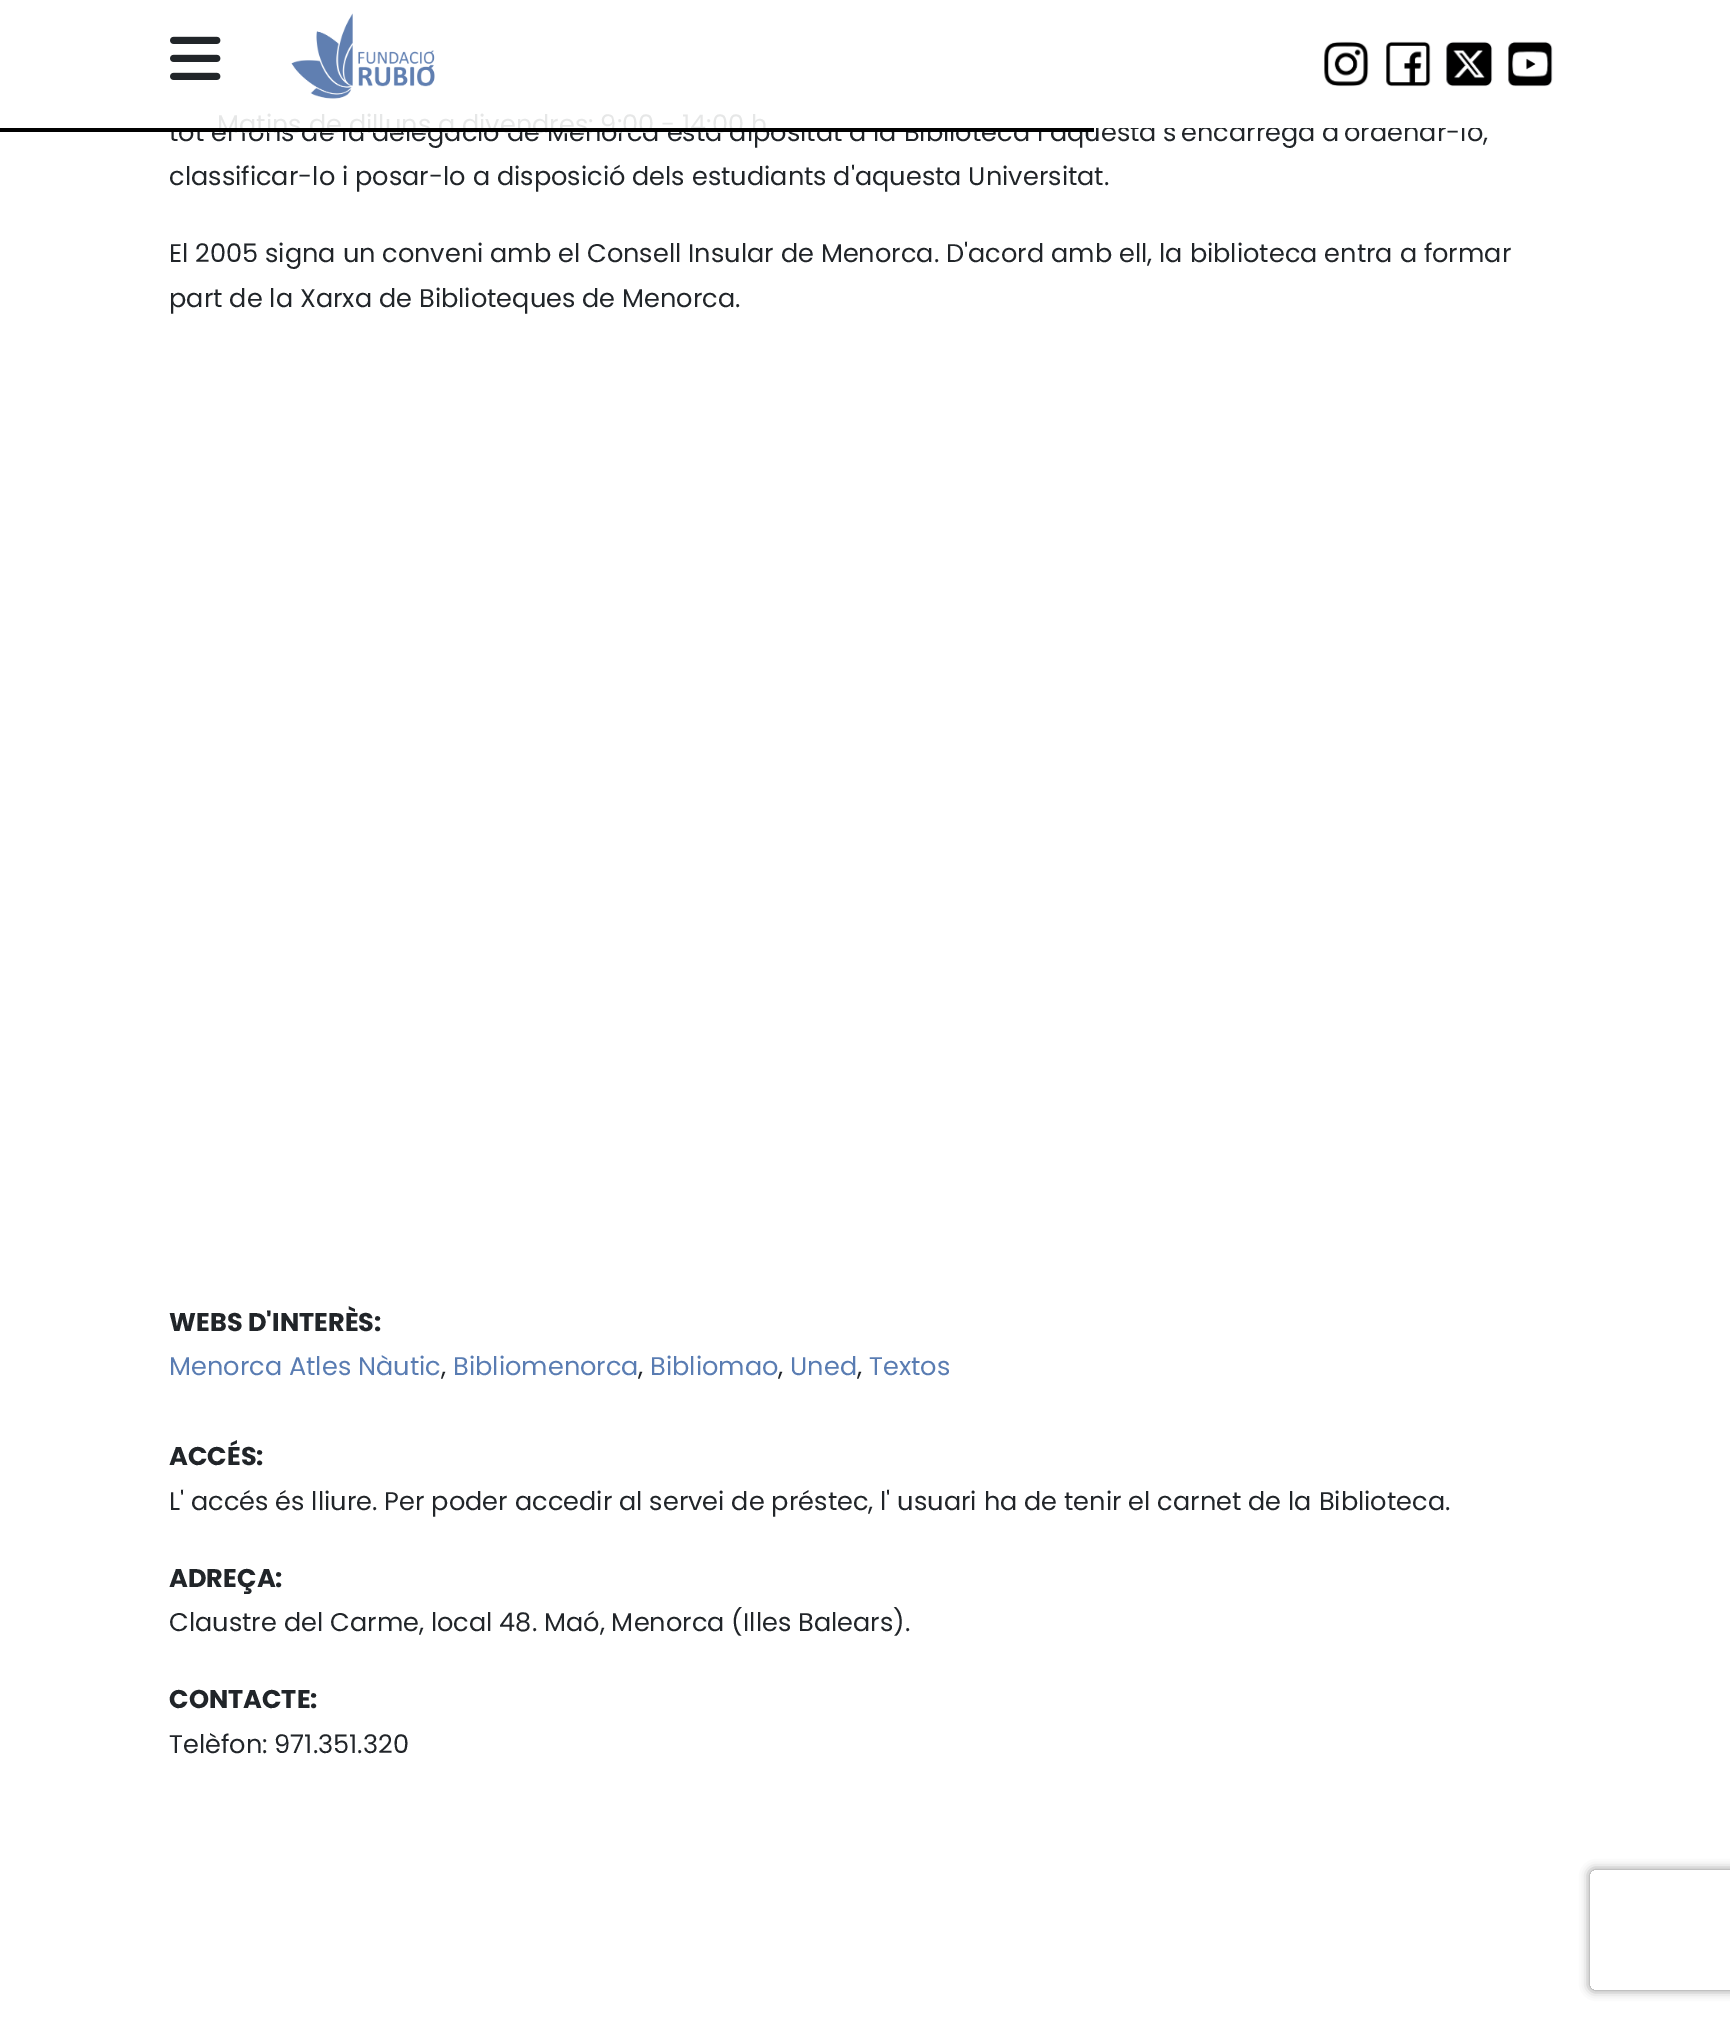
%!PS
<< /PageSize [1730 2017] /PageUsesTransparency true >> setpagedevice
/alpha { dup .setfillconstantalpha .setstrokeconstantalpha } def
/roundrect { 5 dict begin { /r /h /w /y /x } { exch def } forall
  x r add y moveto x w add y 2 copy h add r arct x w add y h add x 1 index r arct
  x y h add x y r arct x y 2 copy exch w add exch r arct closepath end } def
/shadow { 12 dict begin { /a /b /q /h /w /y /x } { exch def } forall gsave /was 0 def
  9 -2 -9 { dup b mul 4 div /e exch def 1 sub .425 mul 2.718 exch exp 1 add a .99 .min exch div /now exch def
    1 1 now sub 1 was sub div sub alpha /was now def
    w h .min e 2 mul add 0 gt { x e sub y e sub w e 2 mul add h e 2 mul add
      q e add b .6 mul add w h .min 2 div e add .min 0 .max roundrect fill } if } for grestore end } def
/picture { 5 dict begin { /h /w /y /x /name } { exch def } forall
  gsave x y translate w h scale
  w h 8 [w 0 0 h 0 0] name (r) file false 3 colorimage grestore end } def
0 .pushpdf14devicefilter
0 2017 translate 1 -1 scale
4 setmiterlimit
1 setgray
0 0 1730 2017 rectfill
/Poppins-Regular [25.6 0 0 -25.6 0 0] selectfont
0.129 0.145 0.161 setrgbcolor
169 141 moveto (tot el fons de la delegació de Menorca està dipositat a la Biblioteca i aquesta s'encarrega d'ordenar-lo,) show
1 setgray
169 120 1310 8 rectfill
(img1.rgb) 170 36 51 44 picture
(img2.rgb) 291 13 144 86 picture
(img3.rgb) 1324 41 45 46 picture
(img4.rgb) 1386 41 45 46 picture
(img5.rgb) 1446 41 47 46 picture
(img6.rgb) 1508 41 45 46 picture
0.902 0.906 0.906 setrgbcolor
217 133 moveto (Matins de dilluns a divendres: 9:00 - 14:00 h) show
0.004 setgray
0 128 1094 4 rectfill
0.129 0.145 0.161 setrgbcolor
169 185 moveto (classificar-lo i posar-lo a disposició dels estudiants d'aquesta Universitat.) show
169 262 moveto (El 2005 signa un conveni amb el Consell Insular de Menorca. D'acord amb ell, la biblioteca entra a formar) show
169 307 moveto (part de la Xarxa de Biblioteques de Menorca.) show
/Poppins-Bold [25.6 0 0 -25.6 0 0] selectfont
169 1331 moveto (WEBS D'INTERÈS:) show
/Poppins-Regular [25.6 0 0 -25.6 0 0] selectfont
0.349 0.486 0.698 setrgbcolor
169 1375 moveto (Menorca Atles Nàutic) show
0.129 0.145 0.161 setrgbcolor
441 1375 moveto (,) show
0.349 0.486 0.698 setrgbcolor
453 1375 moveto (Bibliomenorca) show
0.129 0.145 0.161 setrgbcolor
638 1375 moveto (,) show
0.349 0.486 0.698 setrgbcolor
650 1375 moveto (Bibliomao) show
0.129 0.145 0.161 setrgbcolor
778 1375 moveto (,) show
0.349 0.486 0.698 setrgbcolor
790 1375 moveto (Uned) show
0.129 0.145 0.161 setrgbcolor
857 1375 moveto (,) show
0.349 0.486 0.698 setrgbcolor
869 1375 moveto (Textos) show
/Poppins-Bold [25.6 0 0 -25.6 0 0] selectfont
0.129 0.145 0.161 setrgbcolor
169 1465 moveto (ACCÉS:) show
/Poppins-Regular [25.6 0 0 -25.6 0 0] selectfont
169 1510 moveto (L' accés és lliure. Per poder accedir al servei de préstec, l' usuari ha de tenir el carnet de la Biblioteca.) show
/Poppins-Bold [25.6 0 0 -25.6 0 0] selectfont
169 1587 moveto (ADREÇA:) show
/Poppins-Regular [25.6 0 0 -25.6 0 0] selectfont
169 1631 moveto (Claustre del Carme, local 48. Maó, Menorca \(Illes Balears\).) show
/Poppins-Bold [25.6 0 0 -25.6 0 0] selectfont
169 1708 moveto (CONTACTE:) show
/Poppins-Regular [25.6 0 0 -25.6 0 0] selectfont
169 1753 moveto (Telèfon: 971.351.320) show
gsave
newpath 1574 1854 moveto 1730 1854 lineto 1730 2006 lineto 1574 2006 lineto closepath 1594 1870 moveto 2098 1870 lineto 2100 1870 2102 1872 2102 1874 curveto 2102 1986 lineto 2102 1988 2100 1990 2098 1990 curveto 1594 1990 lineto 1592 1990 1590 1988 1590 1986 curveto 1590 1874 lineto 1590 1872 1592 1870 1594 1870 curveto closepath eoclip newpath
0.502 setgray
1590 1870 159 120 4 5 1 shadow
grestore
.poppdf14devicefilter showpage
